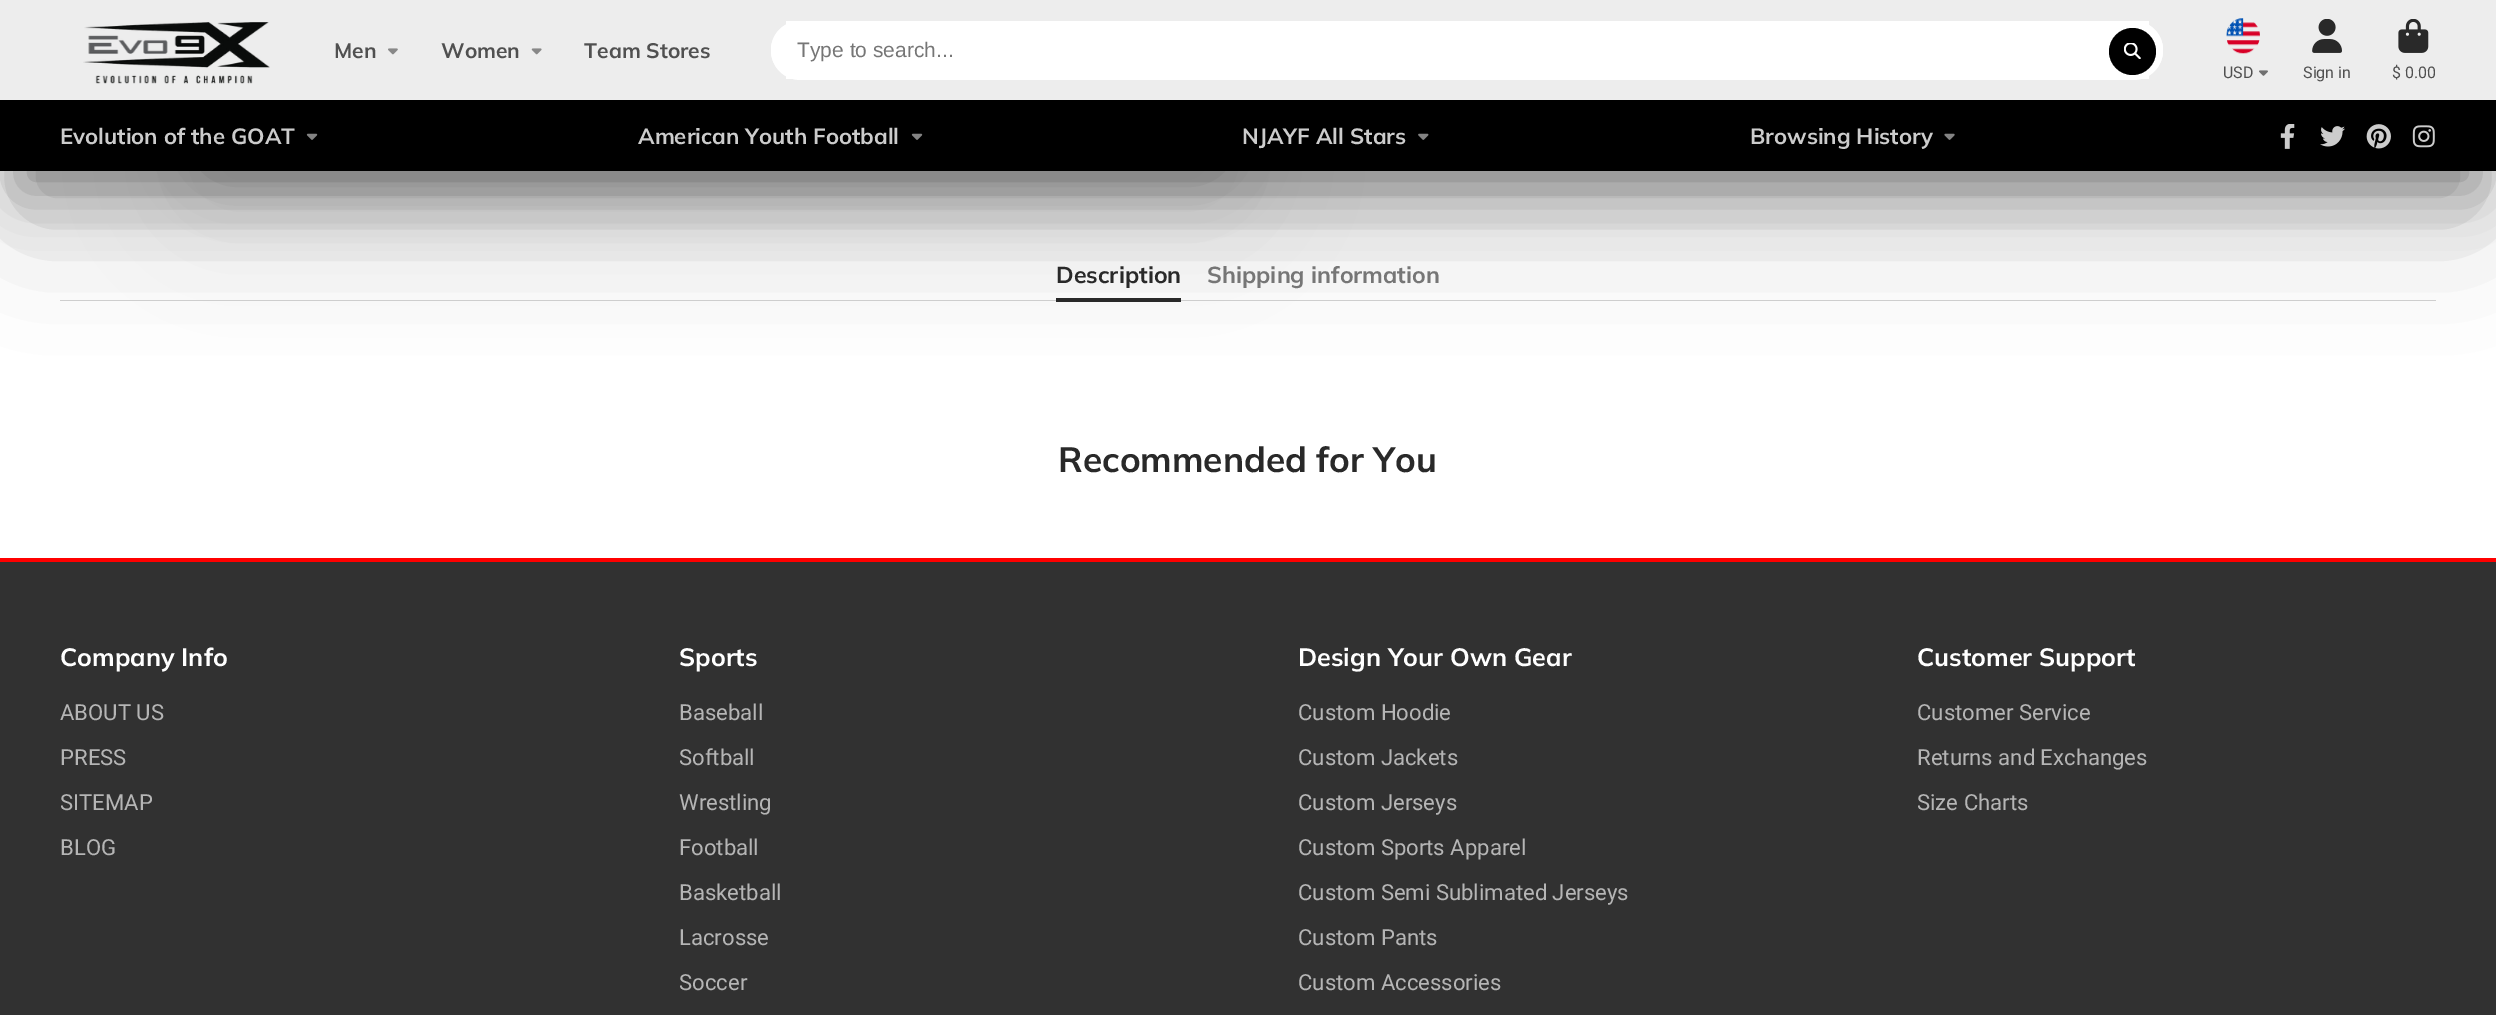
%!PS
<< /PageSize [2496 1015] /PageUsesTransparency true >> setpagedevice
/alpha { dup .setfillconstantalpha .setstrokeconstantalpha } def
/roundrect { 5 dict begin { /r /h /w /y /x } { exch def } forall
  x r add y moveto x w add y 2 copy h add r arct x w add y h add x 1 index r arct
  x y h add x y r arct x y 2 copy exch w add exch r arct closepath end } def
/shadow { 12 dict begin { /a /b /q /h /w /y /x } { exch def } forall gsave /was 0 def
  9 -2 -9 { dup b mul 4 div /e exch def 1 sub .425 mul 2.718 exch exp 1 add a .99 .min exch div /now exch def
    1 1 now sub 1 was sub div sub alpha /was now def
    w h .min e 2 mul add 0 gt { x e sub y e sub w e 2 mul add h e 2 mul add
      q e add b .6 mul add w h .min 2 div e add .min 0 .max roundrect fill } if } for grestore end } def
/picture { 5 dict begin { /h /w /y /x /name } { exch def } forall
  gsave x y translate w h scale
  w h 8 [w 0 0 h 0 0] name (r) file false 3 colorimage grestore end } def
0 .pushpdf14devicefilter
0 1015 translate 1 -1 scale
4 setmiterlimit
1 setgray
0 0 2496 1015 rectfill
0.11 setgray
20 58 2456 131 0 27.5 0.4 shadow
203 -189 1021 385 0 63 0.1 shadow
0.82 setgray
60 300 2376 1 rectfill
0.161 setgray
1056 298 125 4 rectfill
0.11 setgray
20 83 2456 131 0 63 0.3 shadow
215 -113 996 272 0 37.5 0.3 shadow
0.929 setgray
0 0 2496 100 rectfill
(img1.rgb) 83 22 187 62 picture
/Muli-Bold [21 0 0 -21 0 0] selectfont
0.314 setgray
334 58 moveto (Men) show
(img2.rgb) 388 48 10 7 picture
441 58 moveto (Women) show
(img3.rgb) 531 48 11 7 picture
584 58 moveto (Team Stores) show
1 setgray
771 21 1392 58 29 roundrect fill
786 21 1363 58 rectfill
771 21 1392 59 29.5 roundrect fill
/LiberationSans-Regular [21 0 0 -21 0 0] selectfont
0.463 setgray
797 57 moveto (Type to search...) show
0 setgray
newpath 2132.5 51.5 23.5 0 360 arc closepath fill
(img4.rgb) 2124 43 17 16 picture
(img5.rgb) 2226 18 34 36 picture
/Roboto-Regular [16 0 0 -16 0 0] selectfont
0.314 setgray
2223 78 moveto (USD) show
(img6.rgb) 2259 70 9 6 picture
(img7.rgb) 2312 19 30 34 picture
2303 78 moveto (Sign in) show
(img8.rgb) 2398 19 31 34 picture
2392 78 moveto ($ 0.00) show
0 setgray
0 100 2496 71 rectfill
/Muli-Bold [22.1 0 0 -22.1 0 0] selectfont
0.8 setgray
60 144 moveto (Evolution of the GOAT) show
(img9.rgb) 306 133 12 7 picture
638 144 moveto (American Youth Football) show
(img9.rgb) 911 133 12 7 picture
1242 144 moveto (NJAYF All Stars) show
(img10.rgb) 1418 133 11 7 picture
1750 144 moveto (Browsing History) show
(img11.rgb) 1944 133 11 7 picture
(img12.rgb) 2280 124 15 25 picture
(img13.rgb) 2320 126 25 21 picture
(img14.rgb) 2366 124 25 25 picture
(img15.rgb) 2412 125 23 23 picture
/Muli-Bold [23.1 0 0 -23.1 0 0] selectfont
0.161 setgray
1056 283 moveto (Description) show
0.463 setgray
1207 283 moveto (Shipping information) show
/Muli-Bold [35.1 0 0 -35.1 0 0] selectfont
0.161 setgray
1058 472 moveto (Recommended for You) show
0.192 setgray
0 562 2496 453 rectfill
1 0 0 setrgbcolor
0 558 2496 4 rectfill
/Muli-Bold [25.1 0 0 -25.1 0 0] selectfont
1 setgray
60 666 moveto (Company Info) show
/Roboto-Regular [22.1 0 0 -22.1 0 0] selectfont
0.71 setgray
60 720 moveto (ABOUT US) show
60 765 moveto (PRESS) show
60 810 moveto (SITEMAP) show
60 855 moveto (BLOG) show
/Muli-Bold [25.1 0 0 -25.1 0 0] selectfont
1 setgray
679 666 moveto (Sports) show
/Roboto-Regular [22.1 0 0 -22.1 0 0] selectfont
0.71 setgray
679 720 moveto (Baseball) show
679 765 moveto (Softball) show
679 810 moveto (Wrestling) show
679 855 moveto (Football) show
679 900 moveto (Basketball) show
679 945 moveto (Lacrosse) show
679 990 moveto (Soccer) show
/Muli-Bold [25.1 0 0 -25.1 0 0] selectfont
1 setgray
1298 666 moveto (Design Your Own Gear) show
/Roboto-Regular [22.1 0 0 -22.1 0 0] selectfont
0.71 setgray
1298 720 moveto (Custom Hoodie) show
1298 765 moveto (Custom Jackets) show
1298 810 moveto (Custom Jerseys) show
1298 855 moveto (Custom Sports Apparel) show
1298 900 moveto (Custom Semi Sublimated Jerseys) show
1298 945 moveto (Custom Pants) show
1298 990 moveto (Custom Accessories) show
/Muli-Bold [25.1 0 0 -25.1 0 0] selectfont
1 setgray
1917 666 moveto (Customer Support) show
/Roboto-Regular [22.1 0 0 -22.1 0 0] selectfont
0.71 setgray
1917 720 moveto (Customer Service) show
1917 765 moveto (Returns and Exchanges) show
1917 810 moveto (Size Charts) show
.poppdf14devicefilter showpage
